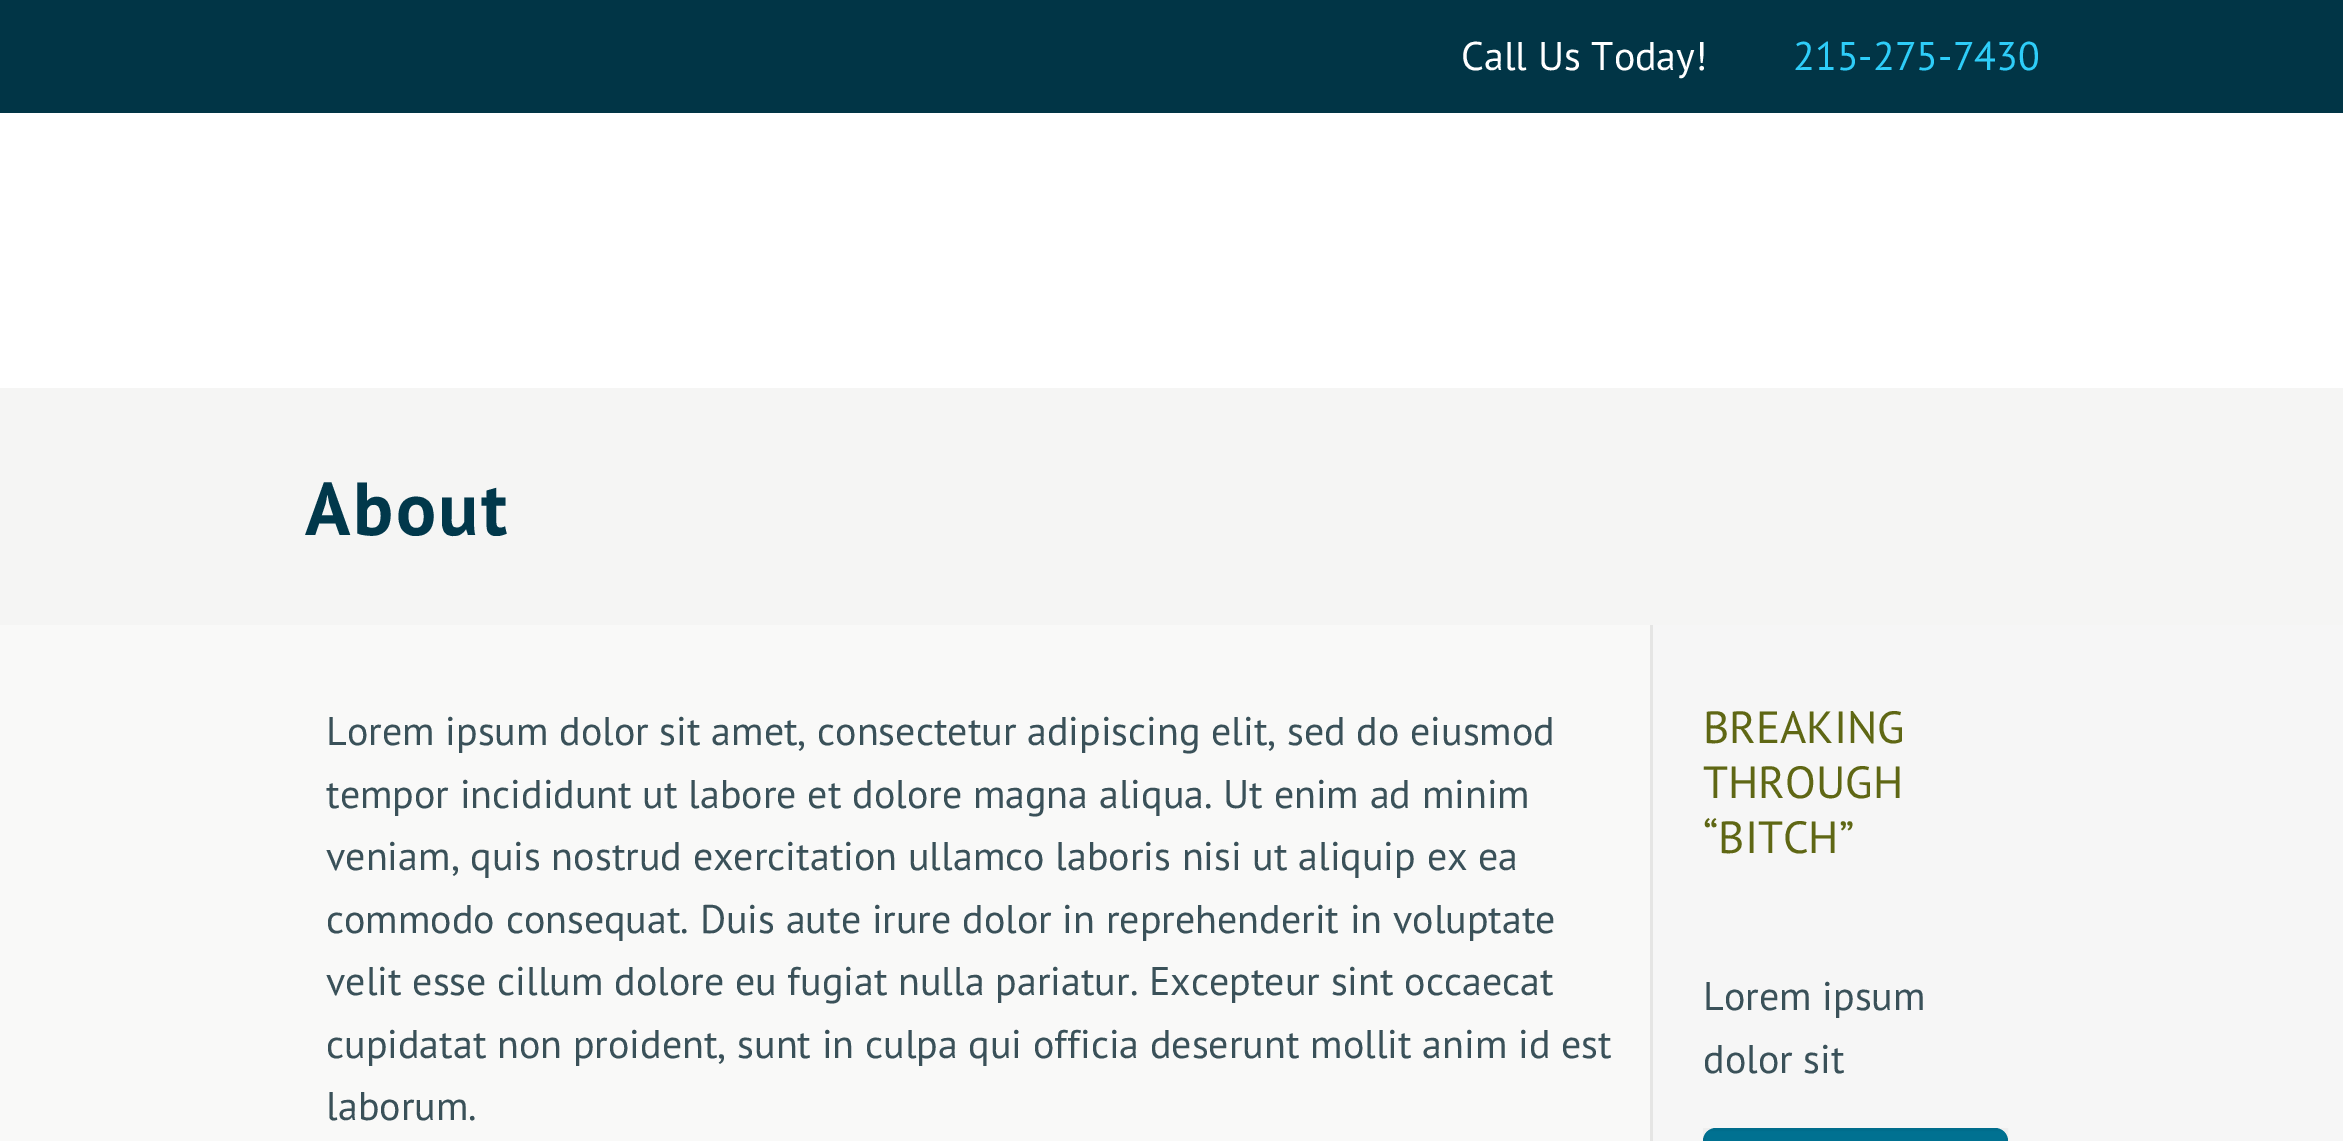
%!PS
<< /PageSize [2343 1141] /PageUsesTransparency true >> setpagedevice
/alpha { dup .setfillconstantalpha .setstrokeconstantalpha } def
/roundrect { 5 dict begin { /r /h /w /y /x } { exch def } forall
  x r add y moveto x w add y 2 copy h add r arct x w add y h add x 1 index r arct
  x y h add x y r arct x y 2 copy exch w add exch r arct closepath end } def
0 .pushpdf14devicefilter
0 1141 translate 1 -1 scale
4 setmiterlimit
0.976 0.976 0.973 setrgbcolor
0 0 2343 1141 rectfill
0.004 0.208 0.275 setrgbcolor
0 0 2343 113 rectfill
/PTSans-Regular [40 0 0 -40 0 0] selectfont
1 setgray
1461 70 moveto (Call Us Today!) show
0.18 0.804 0.976 setrgbcolor
1793 70 moveto (215-275-7430) show
1 setgray
0 113 2343 275 rectfill
0.961 0.961 0.957 setrgbcolor
0 388 2343 237 rectfill
/PTSans-Bold [75 0 0 -75 0 0] selectfont
0.004 0.22 0.294 setrgbcolor
305 535 moveto 2.5 0 (About) ashow
/PTSans-Regular [40 0 0 -40 0 0] selectfont
0.227 0.318 0.349 setrgbcolor
326 745 moveto (Lorem ipsum dolor sit amet, consectetur adipiscing elit, sed do eiusmod) show
326 808 moveto (tempor incididunt ut labore et dolore magna aliqua. Ut enim ad minim) show
326 870 moveto (veniam, quis nostrud exercitation ullamco laboris nisi ut aliquip ex ea) show
326 933 moveto (commodo consequat. Duis aute irure dolor in reprehenderit in voluptate) show
326 995 moveto (velit esse cillum dolore eu fugiat nulla pariatur. Excepteur sint occaecat) show
326 1058 moveto (cupidatat non proident, sunt in culpa qui officia deserunt mollit anim id est) show
326 1120 moveto (laborum.) show
0.898 0.898 0.894 setrgbcolor
1650 625 3 516 rectfill
0.965 setgray
1653 625 690 516 rectfill
/PTSans-Regular [45 0 0 -45 0 0] selectfont
0.373 0.404 0.078 setrgbcolor
1703 743 moveto (BREAKING) show
1703 798 moveto (THROUGH) show
1703 853 moveto (“BITCH”) show
/PTSans-Regular [40 0 0 -40 0 0] selectfont
0.227 0.318 0.349 setrgbcolor
1703 1010 moveto (Lorem ipsum) show
1703 1073 moveto (dolor sit) show
0 0.443 0.569 setrgbcolor
1703 1128 305 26 13 roundrect fill
0.03 alpha
0 setgray
3 setlinewidth
1704.5 1129.5 302 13 rectstroke
.poppdf14devicefilter showpage
